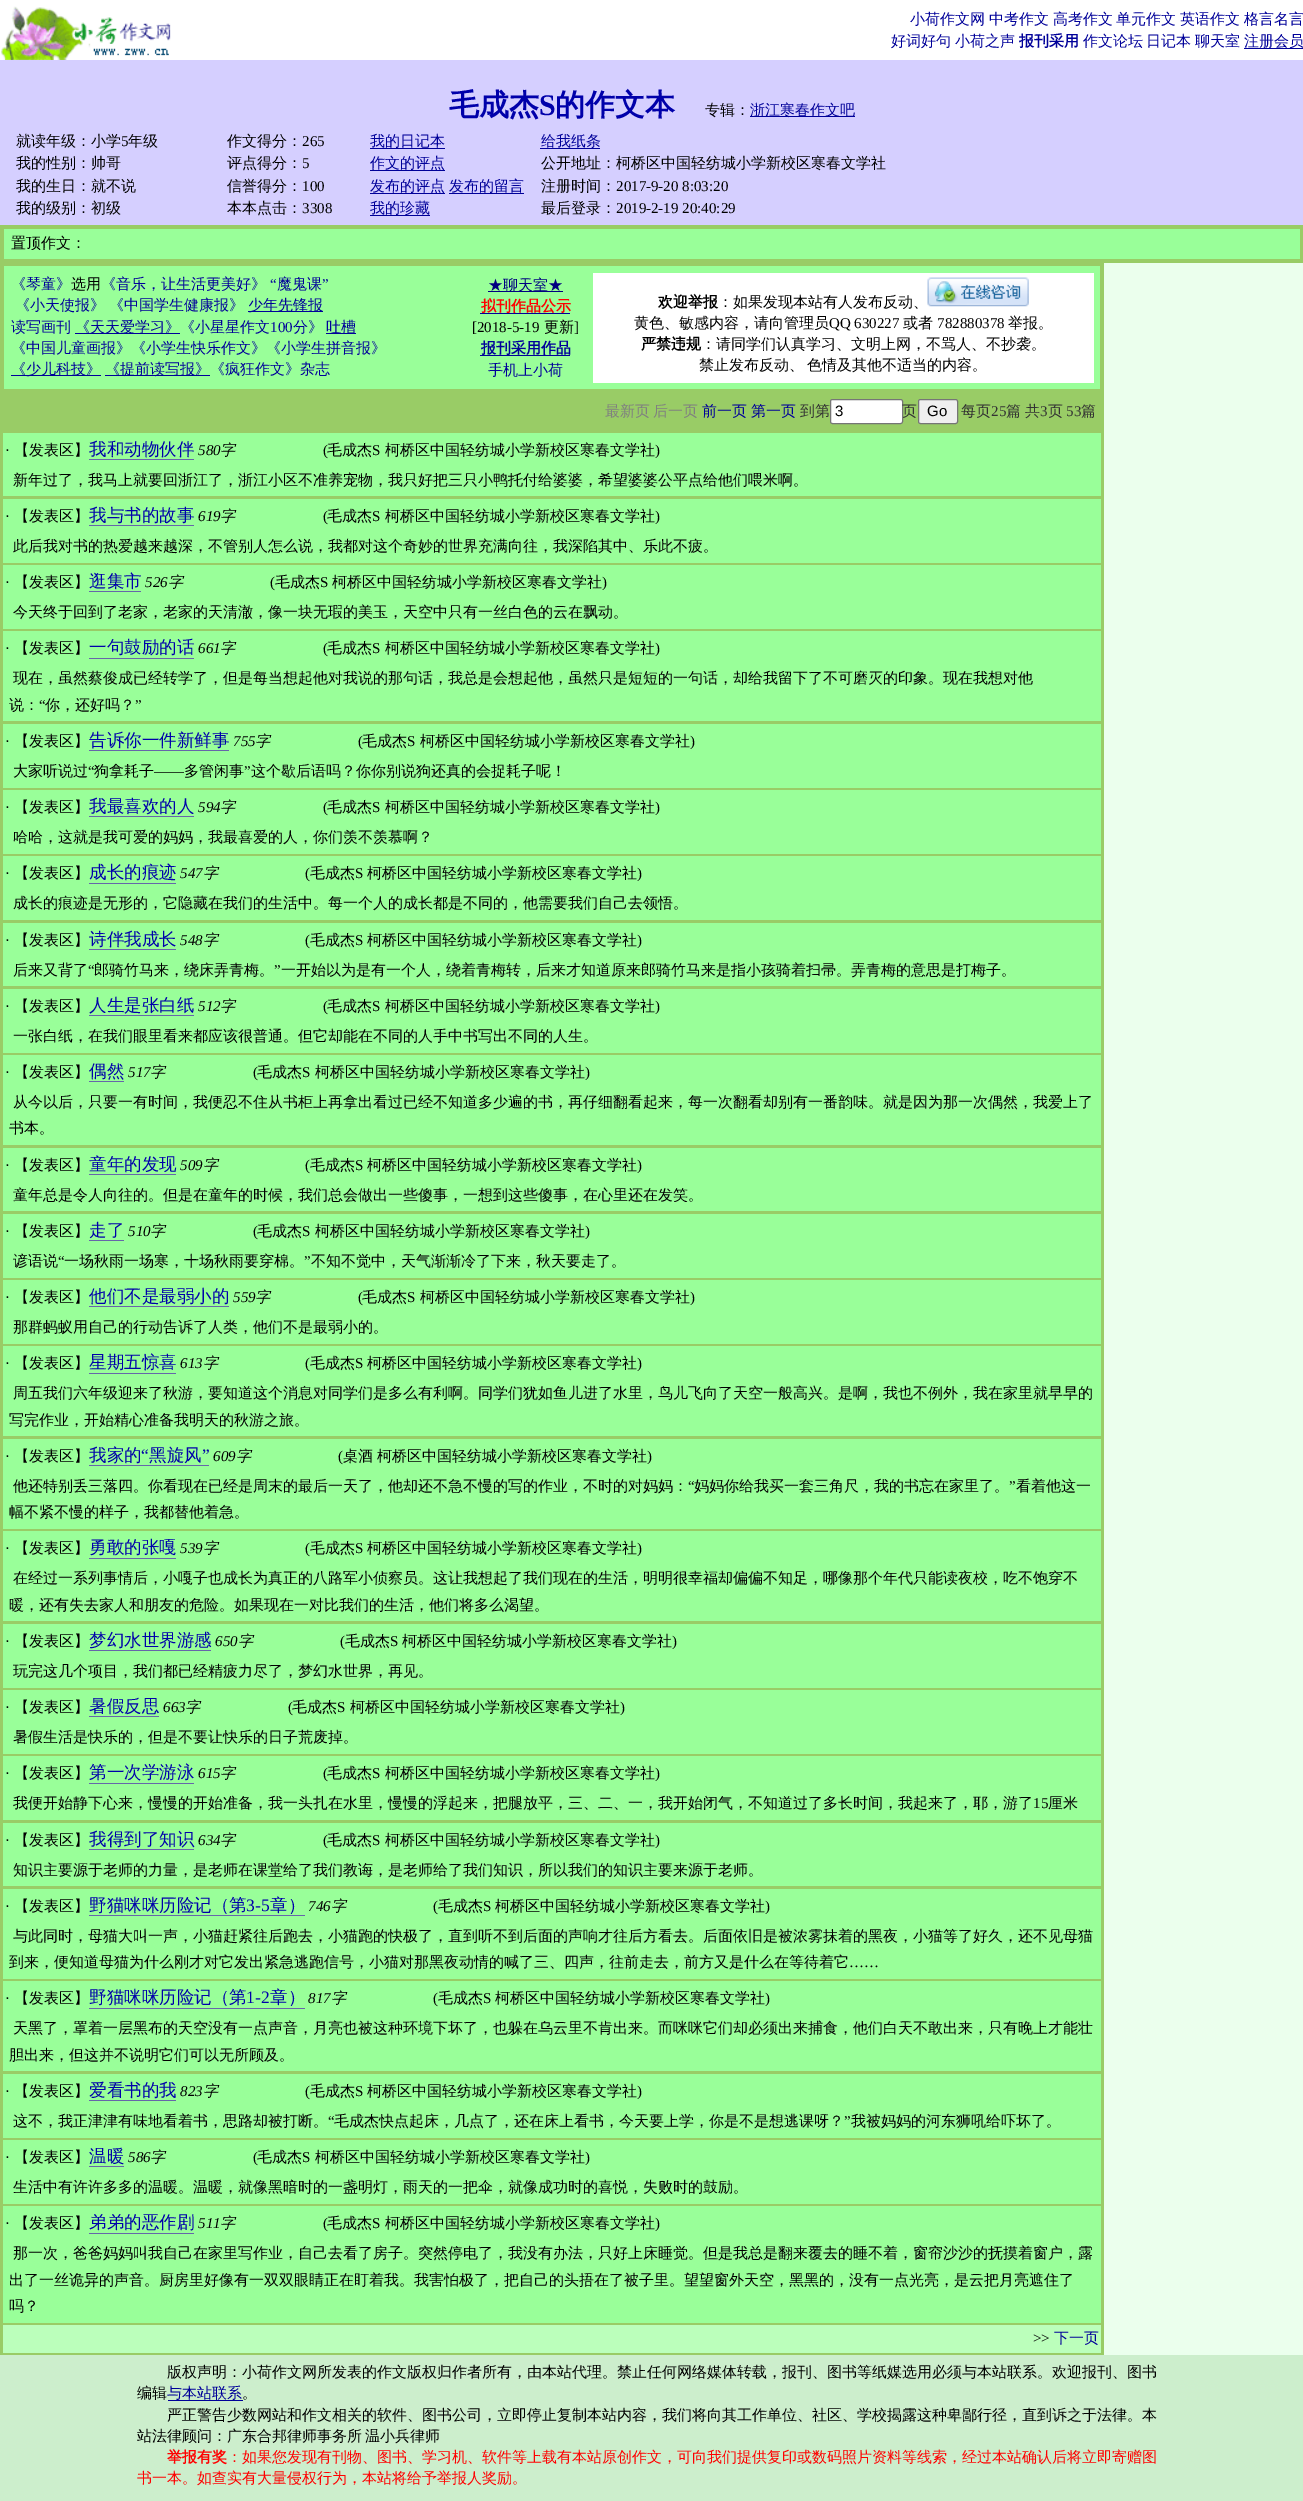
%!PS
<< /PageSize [1303 2501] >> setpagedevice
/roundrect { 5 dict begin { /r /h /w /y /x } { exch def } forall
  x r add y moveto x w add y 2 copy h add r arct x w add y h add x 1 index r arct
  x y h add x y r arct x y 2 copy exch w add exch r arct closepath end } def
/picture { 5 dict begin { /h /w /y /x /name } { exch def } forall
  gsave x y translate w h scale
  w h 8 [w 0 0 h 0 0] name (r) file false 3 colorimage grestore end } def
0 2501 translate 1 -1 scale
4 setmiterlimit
1 setgray
0 0 1303 2501 rectfill
(img1.rgb) 1 6 170 54 picture
/WenQuanYiZenHei-Medium [15 0 0 -15 0 0] selectfont
0 0 0.6 setrgbcolor
910 24 moveto (小荷作文网) show
989 24 moveto (中考作文) show
1053 24 moveto (高考作文) show
1116 24 moveto (单元作文) show
1180 24 moveto (英语作文) show
1244 24 moveto (格言名言) show
891 46 moveto (好词好句) show
955 46 moveto (小荷之声) show
/WenQuanYiZenHei-Bold [15 0 0 -15 0 0] selectfont
1019 46 moveto (报刊采用) show
/WenQuanYiZenHei-Medium [15 0 0 -15 0 0] selectfont
1083 46 moveto (作文论坛) show
1146 46 moveto (日记本) show
1195 46 moveto (聊天室) show
1244 48 59 1 rectfill
1244 46 moveto (注册会员) show
0.835 0.812 1 setrgbcolor
0 60 1303 165 rectfill
/WenQuanYiZenHei-Bold [30 0 0 -30 0 0] selectfont
0 0 0.667 setrgbcolor
449 115 moveto (毛成杰) show
/LiberationSerif-Bold [30 0 0 -30 0 0] selectfont
539 115 moveto (S) show
/WenQuanYiZenHei-Bold [30 0 0 -30 0 0] selectfont
555 115 moveto (的作文本) show
/WenQuanYiZenHei-Medium [15 0 0 -15 0 0] selectfont
0 setgray
705 115 moveto (专辑：) show
0 0 0.6 setrgbcolor
750 116 105 1 rectfill
750 115 moveto (浙江寒春作文吧) show
0 setgray
16 146 moveto (就读年级：小学) show
/LiberationSerif-Regular [15 0 0 -15 0 0] selectfont
121 146 moveto (5) show
/WenQuanYiZenHei-Medium [15 0 0 -15 0 0] selectfont
128 146 moveto (年级) show
16 168 moveto (我的性别：帅哥) show
16 191 moveto (我的生日：就不说) show
16 213 moveto (我的级别：初级) show
227 146 moveto (作文得分：) show
/LiberationSerif-Regular [15 0 0 -15 0 0] selectfont
302 146 moveto (265) show
/WenQuanYiZenHei-Medium [15 0 0 -15 0 0] selectfont
227 168 moveto (评点得分：) show
/LiberationSerif-Regular [15 0 0 -15 0 0] selectfont
302 168 moveto (5) show
/WenQuanYiZenHei-Medium [15 0 0 -15 0 0] selectfont
227 191 moveto (信誉得分：) show
/LiberationSerif-Regular [15 0 0 -15 0 0] selectfont
302 191 moveto (100) show
/WenQuanYiZenHei-Medium [15 0 0 -15 0 0] selectfont
227 213 moveto (本本点击：) show
/LiberationSerif-Regular [15 0 0 -15 0 0] selectfont
302 213 moveto (3308) show
/WenQuanYiZenHei-Medium [15 0 0 -15 0 0] selectfont
0 0 0.6 setrgbcolor
370 146 moveto (我的日记本) show
370 148 75 1 rectfill
370 170 75 1 rectfill
370 168 moveto (作文的评点) show
370 193 75 1 rectfill
370 191 moveto (发布的评点) show
449 191 moveto (发布的留言) show
449 193 75 1 rectfill
370 215 60 1 rectfill
370 213 moveto (我的珍藏) show
541 146 moveto (给我纸条) show
540 148 60 1 rectfill
0 setgray
541 168 moveto (公开地址：柯桥区中国轻纺城小学新校区寒春文学社) show
541 191 moveto (注册时间：) show
/LiberationSerif-Regular [15 0 0 -15 0 0] selectfont
616 191 moveto (2017-9-20 8:03:20) show
/WenQuanYiZenHei-Medium [15 0 0 -15 0 0] selectfont
541 213 moveto (最后登录：) show
/LiberationSerif-Regular [15 0 0 -15 0 0] selectfont
616 213 moveto (2019-2-19 20:40:29) show
0.6 0.8 0.4 setrgbcolor
0 225 1303 38 rectfill
0.6 1 0.6 setrgbcolor
4 229 1296 30 rectfill
/WenQuanYiZenHei-Medium [15 0 0 -15 0 0] selectfont
0 setgray
11 248 moveto (置顶作文：) show
0.6 0.8 0.4 setrgbcolor
0 263 1104 2092 rectfill
0.6 1 0.6 setrgbcolor
4 266 1096 123 rectfill
0 0 0.6 setrgbcolor
11 289 moveto (《琴童》) show
0 setgray
71 289 moveto (选用) show
0 0 0.6 setrgbcolor
101 289 moveto (《音乐，让生活更美好》) show
/LiberationSerif-Regular [15 0 0 -15 0 0] selectfont
270 289 moveto (“) show
/WenQuanYiZenHei-Medium [15 0 0 -15 0 0] selectfont
277 289 moveto (魔鬼课) show
/LiberationSerif-Regular [15 0 0 -15 0 0] selectfont
322 289 moveto (”) show
/WenQuanYiZenHei-Medium [15 0 0 -15 0 0] selectfont
15 310 moveto (《小天使报》) show
109 310 moveto (《中国学生健康报》) show
248 311 75 1 rectfill
248 310 moveto (少年先锋报) show
11 332 moveto (读写画刊) show
75 333 105 1 rectfill
75 332 moveto (《天天爱学习》《小星星作文) show
/LiberationSerif-Regular [15 0 0 -15 0 0] selectfont
270 332 moveto (100) show
/WenQuanYiZenHei-Medium [15 0 0 -15 0 0] selectfont
293 332 moveto (分》) show
326 333 30 1 rectfill
326 332 moveto (吐槽) show
11 353 moveto (《中国儿童画报》《小学生快乐作文》《小学生拼音报》) show
11 375 90 1 rectfill
11 374 moveto (《少儿科技》) show
105 375 105 1 rectfill
105 374 moveto (《提前读写报》《疯狂作文》杂志) show
0 0 0.502 setrgbcolor
488 291 75 1 rectfill
488 290 moveto (★聊天室★) show
0 0 0.6 setrgbcolor
480 313 90 1 rectfill
/WenQuanYiZenHei-Bold [15 0 0 -15 0 0] selectfont
1 0 0 setrgbcolor
481 311 moveto (拟刊作品公示) show
/LiberationSerif-Regular [15 0 0 -15 0 0] selectfont
0 setgray
472 332 moveto ([2018-5-19) show
/WenQuanYiZenHei-Medium [15 0 0 -15 0 0] selectfont
544 332 moveto (更新) show
/LiberationSerif-Regular [15 0 0 -15 0 0] selectfont
574 332 moveto (]) show
0 0 0.6 setrgbcolor
480 355 90 1 rectfill
/WenQuanYiZenHei-Bold [15 0 0 -15 0 0] selectfont
481 353 moveto (报刊采用作品) show
/WenQuanYiZenHei-Medium [15 0 0 -15 0 0] selectfont
488 375 moveto (手机上小荷) show
1 setgray
593 273 501 110 rectfill
/WenQuanYiZenHei-Bold [15 0 0 -15 0 0] selectfont
0 setgray
658 307 moveto (欢迎举报) show
/WenQuanYiZenHei-Medium [15 0 0 -15 0 0] selectfont
718 307 moveto (：如果发现本站有人发布反动、) show
(img2.rgb) 927 277 102 30 picture
634 328 moveto (黄色、敏感内容，请向管理员) show
/LiberationSerif-Regular [15 0 0 -15 0 0] selectfont
829 328 moveto (QQ 630227) show
/WenQuanYiZenHei-Medium [15 0 0 -15 0 0] selectfont
903 328 moveto (或者) show
/LiberationSerif-Regular [15 0 0 -15 0 0] selectfont
937 328 moveto (782880378) show
/WenQuanYiZenHei-Medium [15 0 0 -15 0 0] selectfont
1008 328 moveto (举报。) show
/WenQuanYiZenHei-Bold [15 0 0 -15 0 0] selectfont
641 349 moveto (严禁违规) show
/WenQuanYiZenHei-Medium [15 0 0 -15 0 0] selectfont
701 349 moveto (：请同学们认真学习、文明上网，不骂人、不抄袭。) show
699 370 moveto -1 0 32 (禁止发布反动、 色情及其他不适当的内容。) widthshow
0.502 setgray
605 416 moveto -1 0 32 (最新页 后一页) widthshow
0 0 0.6 setrgbcolor
702 416 moveto (前一页) show
751 416 moveto (第一页) show
0.2 setgray
800 416 moveto (到第) show
1 setgray
830.5 399.5 72 24 2 roundrect gsave fill grestore
0.463 setgray
stroke
/LiberationSans-Regular [15 0 0 -15 0 0] selectfont
0 setgray
835 416 moveto (3) show
/WenQuanYiZenHei-Medium [15 0 0 -15 0 0] selectfont
0.2 setgray
902 416 moveto (页) show
0.937 setgray
918.5 399.5 39 24 2 roundrect gsave fill grestore
0.463 setgray
stroke
/LiberationSans-Regular [15 0 0 -15 0 0] selectfont
0 setgray
927 416 moveto (Go) show
/WenQuanYiZenHei-Medium [15 0 0 -15 0 0] selectfont
0.2 setgray
961 416 moveto (每页) show
/LiberationSerif-Regular [15 0 0 -15 0 0] selectfont
991 416 moveto (25) show
/WenQuanYiZenHei-Medium [15 0 0 -15 0 0] selectfont
1006 416 moveto (篇 共) show
/LiberationSerif-Regular [15 0 0 -15 0 0] selectfont
1040 416 moveto (3) show
/WenQuanYiZenHei-Medium [15 0 0 -15 0 0] selectfont
1048 416 moveto (页) show
/LiberationSerif-Regular [15 0 0 -15 0 0] selectfont
1066 416 moveto (53) show
/WenQuanYiZenHei-Medium [15 0 0 -15 0 0] selectfont
1081 416 moveto (篇) show
0.6 1 0.6 setrgbcolor
3 433 1098 63 rectfill
/LiberationSerif-Regular [15 0 0 -15 0 0] selectfont
0 setgray
5 455 moveto (·) show
/WenQuanYiZenHei-Medium [15 0 0 -15 0 0] selectfont
14 455 moveto (【发表区】) show
/WenQuanYiZenHei-Medium [17.5 0 0 -17.5 0 0] selectfont
0 0 0.667 setrgbcolor
89 455 moveto (我和动物伙伴) show
0.4 0.4 0.667 setrgbcolor
89 459 105 1 rectfill
/LiberationSerif-Italic [15 0 0 -15 0 0] selectfont
0 setgray
198 455 moveto (580) show
/WenQuanYiZenHei-MediumItalic [15 0 0 -15 0 0] selectfont
220 455 moveto (字) show
/LiberationSerif-Regular [15 0 0 -15 0 0] selectfont
323 455 moveto (\() show
/WenQuanYiZenHei-Medium [15 0 0 -15 0 0] selectfont
327 455 moveto (毛成杰) show
/LiberationSerif-Regular [15 0 0 -15 0 0] selectfont
372 455 moveto (S) show
/WenQuanYiZenHei-Medium [15 0 0 -15 0 0] selectfont
385 455 moveto (柯桥区中国轻纺城小学新校区寒春文学社) show
/LiberationSerif-Regular [15 0 0 -15 0 0] selectfont
655 455 moveto (\)) show
/WenQuanYiZenHei-Medium [15 0 0 -15 0 0] selectfont
13 485 moveto (新年过了，我马上就要回浙江了，浙江小区不准养宠物，我只好把三只小鸭托付给婆婆，希望婆婆公平点给他们喂米啊。) show
0.6 1 0.6 setrgbcolor
3 499 1098 64 rectfill
/LiberationSerif-Regular [15 0 0 -15 0 0] selectfont
0 setgray
5 521 moveto (·) show
/WenQuanYiZenHei-Medium [15 0 0 -15 0 0] selectfont
14 521 moveto (【发表区】) show
/WenQuanYiZenHei-Medium [17.5 0 0 -17.5 0 0] selectfont
0 0 0.667 setrgbcolor
89 521 moveto (我与书的故事) show
0.4 0.4 0.667 setrgbcolor
89 525 105 1 rectfill
/LiberationSerif-Italic [15 0 0 -15 0 0] selectfont
0 setgray
198 521 moveto (619) show
/WenQuanYiZenHei-MediumItalic [15 0 0 -15 0 0] selectfont
220 521 moveto (字) show
/LiberationSerif-Regular [15 0 0 -15 0 0] selectfont
323 521 moveto (\() show
/WenQuanYiZenHei-Medium [15 0 0 -15 0 0] selectfont
327 521 moveto (毛成杰) show
/LiberationSerif-Regular [15 0 0 -15 0 0] selectfont
372 521 moveto (S) show
/WenQuanYiZenHei-Medium [15 0 0 -15 0 0] selectfont
385 521 moveto (柯桥区中国轻纺城小学新校区寒春文学社) show
/LiberationSerif-Regular [15 0 0 -15 0 0] selectfont
655 521 moveto (\)) show
/WenQuanYiZenHei-Medium [15 0 0 -15 0 0] selectfont
13 551 moveto (此后我对书的热爱越来越深，不管别人怎么说，我都对这个奇妙的世界充满向往，我深陷其中、乐此不疲。) show
0.6 1 0.6 setrgbcolor
3 565 1098 64 rectfill
/LiberationSerif-Regular [15 0 0 -15 0 0] selectfont
0 setgray
5 587 moveto (·) show
/WenQuanYiZenHei-Medium [15 0 0 -15 0 0] selectfont
14 587 moveto (【发表区】) show
/WenQuanYiZenHei-Medium [17.5 0 0 -17.5 0 0] selectfont
0 0 0.667 setrgbcolor
89 587 moveto (逛集市) show
0.4 0.4 0.667 setrgbcolor
89 591 52 1 rectfill
/LiberationSerif-Italic [15 0 0 -15 0 0] selectfont
0 setgray
145 587 moveto (526) show
/WenQuanYiZenHei-MediumItalic [15 0 0 -15 0 0] selectfont
168 587 moveto (字) show
/LiberationSerif-Regular [15 0 0 -15 0 0] selectfont
270 587 moveto (\() show
/WenQuanYiZenHei-Medium [15 0 0 -15 0 0] selectfont
275 587 moveto (毛成杰) show
/LiberationSerif-Regular [15 0 0 -15 0 0] selectfont
320 587 moveto (S) show
/WenQuanYiZenHei-Medium [15 0 0 -15 0 0] selectfont
332 587 moveto (柯桥区中国轻纺城小学新校区寒春文学社) show
/LiberationSerif-Regular [15 0 0 -15 0 0] selectfont
602 587 moveto (\)) show
/WenQuanYiZenHei-Medium [15 0 0 -15 0 0] selectfont
13 617 moveto (今天终于回到了老家，老家的天清澈，像一块无瑕的美玉，天空中只有一丝白色的云在飘动。) show
0.6 1 0.6 setrgbcolor
3 631 1098 90 rectfill
/LiberationSerif-Regular [15 0 0 -15 0 0] selectfont
0 setgray
5 653 moveto (·) show
/WenQuanYiZenHei-Medium [15 0 0 -15 0 0] selectfont
14 653 moveto (【发表区】) show
/WenQuanYiZenHei-Medium [17.5 0 0 -17.5 0 0] selectfont
0 0 0.667 setrgbcolor
89 653 moveto (一句鼓励的话) show
0.4 0.4 0.667 setrgbcolor
89 658 105 1 rectfill
/LiberationSerif-Italic [15 0 0 -15 0 0] selectfont
0 setgray
198 653 moveto (661) show
/WenQuanYiZenHei-MediumItalic [15 0 0 -15 0 0] selectfont
220 653 moveto (字) show
/LiberationSerif-Regular [15 0 0 -15 0 0] selectfont
323 653 moveto (\() show
/WenQuanYiZenHei-Medium [15 0 0 -15 0 0] selectfont
327 653 moveto (毛成杰) show
/LiberationSerif-Regular [15 0 0 -15 0 0] selectfont
372 653 moveto (S) show
/WenQuanYiZenHei-Medium [15 0 0 -15 0 0] selectfont
385 653 moveto (柯桥区中国轻纺城小学新校区寒春文学社) show
/LiberationSerif-Regular [15 0 0 -15 0 0] selectfont
655 653 moveto (\)) show
/WenQuanYiZenHei-Medium [15 0 0 -15 0 0] selectfont
13 683 moveto (现在，虽然蔡俊成已经转学了，但是每当想起他对我说的那句话，我总是会想起他，虽然只是短短的一句话，却给我留下了不可磨灭的印象。现在我想对他) show
9 710 moveto (说：) show
/LiberationSerif-Regular [15 0 0 -15 0 0] selectfont
39 710 moveto (“) show
/WenQuanYiZenHei-Medium [15 0 0 -15 0 0] selectfont
45 710 moveto (你，还好吗？) show
/LiberationSerif-Regular [15 0 0 -15 0 0] selectfont
135 710 moveto (”) show
0.6 1 0.6 setrgbcolor
3 724 1098 64 rectfill
0 setgray
5 746 moveto (·) show
/WenQuanYiZenHei-Medium [15 0 0 -15 0 0] selectfont
14 746 moveto (【发表区】) show
/WenQuanYiZenHei-Medium [17.5 0 0 -17.5 0 0] selectfont
0 0 0.667 setrgbcolor
89 746 moveto (告诉你一件新鲜事) show
0.4 0.4 0.667 setrgbcolor
89 750 140 1 rectfill
/LiberationSerif-Italic [15 0 0 -15 0 0] selectfont
0 setgray
233 746 moveto (755) show
/WenQuanYiZenHei-MediumItalic [15 0 0 -15 0 0] selectfont
255 746 moveto (字) show
/LiberationSerif-Regular [15 0 0 -15 0 0] selectfont
358 746 moveto (\() show
/WenQuanYiZenHei-Medium [15 0 0 -15 0 0] selectfont
362 746 moveto (毛成杰) show
/LiberationSerif-Regular [15 0 0 -15 0 0] selectfont
407 746 moveto (S) show
/WenQuanYiZenHei-Medium [15 0 0 -15 0 0] selectfont
420 746 moveto (柯桥区中国轻纺城小学新校区寒春文学社) show
/LiberationSerif-Regular [15 0 0 -15 0 0] selectfont
690 746 moveto (\)) show
/WenQuanYiZenHei-Medium [15 0 0 -15 0 0] selectfont
13 776 moveto (大家听说过) show
/LiberationSerif-Regular [15 0 0 -15 0 0] selectfont
88 776 moveto (“) show
/WenQuanYiZenHei-Medium [15 0 0 -15 0 0] selectfont
94 776 moveto (狗拿耗子) show
184 776 moveto (多管闲事) show
/LiberationSerif-Regular [15 0 0 -15 0 0] selectfont
244 776 moveto (”) show
/WenQuanYiZenHei-Medium [15 0 0 -15 0 0] selectfont
251 776 moveto (这个歇后语吗？你你别说狗还真的会捉耗子呢！) show
/LiberationSerif-Regular [15 0 0 -15 0 0] selectfont
154 776 moveto (——) show
0.6 1 0.6 setrgbcolor
3 790 1098 64 rectfill
0 setgray
5 812 moveto (·) show
/WenQuanYiZenHei-Medium [15 0 0 -15 0 0] selectfont
14 812 moveto (【发表区】) show
/WenQuanYiZenHei-Medium [17.5 0 0 -17.5 0 0] selectfont
0 0 0.667 setrgbcolor
89 812 moveto (我最喜欢的人) show
0.4 0.4 0.667 setrgbcolor
89 816 105 1 rectfill
/LiberationSerif-Italic [15 0 0 -15 0 0] selectfont
0 setgray
198 812 moveto (594) show
/WenQuanYiZenHei-MediumItalic [15 0 0 -15 0 0] selectfont
220 812 moveto (字) show
/LiberationSerif-Regular [15 0 0 -15 0 0] selectfont
323 812 moveto (\() show
/WenQuanYiZenHei-Medium [15 0 0 -15 0 0] selectfont
327 812 moveto (毛成杰) show
/LiberationSerif-Regular [15 0 0 -15 0 0] selectfont
372 812 moveto (S) show
/WenQuanYiZenHei-Medium [15 0 0 -15 0 0] selectfont
385 812 moveto (柯桥区中国轻纺城小学新校区寒春文学社) show
/LiberationSerif-Regular [15 0 0 -15 0 0] selectfont
655 812 moveto (\)) show
/WenQuanYiZenHei-Medium [15 0 0 -15 0 0] selectfont
13 842 moveto (哈哈，这就是我可爱的妈妈，我最喜爱的人，你们羡不羡慕啊？) show
0.6 1 0.6 setrgbcolor
3 856 1098 64 rectfill
/LiberationSerif-Regular [15 0 0 -15 0 0] selectfont
0 setgray
5 878 moveto (·) show
/WenQuanYiZenHei-Medium [15 0 0 -15 0 0] selectfont
14 878 moveto (【发表区】) show
/WenQuanYiZenHei-Medium [17.5 0 0 -17.5 0 0] selectfont
0 0 0.667 setrgbcolor
89 878 moveto (成长的痕迹) show
0.4 0.4 0.667 setrgbcolor
89 883 87 1 rectfill
/LiberationSerif-Italic [15 0 0 -15 0 0] selectfont
0 setgray
180 878 moveto (547) show
/WenQuanYiZenHei-MediumItalic [15 0 0 -15 0 0] selectfont
203 878 moveto (字) show
/LiberationSerif-Regular [15 0 0 -15 0 0] selectfont
305 878 moveto (\() show
/WenQuanYiZenHei-Medium [15 0 0 -15 0 0] selectfont
310 878 moveto (毛成杰) show
/LiberationSerif-Regular [15 0 0 -15 0 0] selectfont
355 878 moveto (S) show
/WenQuanYiZenHei-Medium [15 0 0 -15 0 0] selectfont
367 878 moveto (柯桥区中国轻纺城小学新校区寒春文学社) show
/LiberationSerif-Regular [15 0 0 -15 0 0] selectfont
637 878 moveto (\)) show
/WenQuanYiZenHei-Medium [15 0 0 -15 0 0] selectfont
13 908 moveto (成长的痕迹是无形的，它隐藏在我们的生活中。每一个人的成长都是不同的，他需要我们自己去领悟。) show
0.6 1 0.6 setrgbcolor
3 923 1098 63 rectfill
/LiberationSerif-Regular [15 0 0 -15 0 0] selectfont
0 setgray
5 945 moveto (·) show
/WenQuanYiZenHei-Medium [15 0 0 -15 0 0] selectfont
14 945 moveto (【发表区】) show
/WenQuanYiZenHei-Medium [17.5 0 0 -17.5 0 0] selectfont
0 0 0.667 setrgbcolor
89 945 moveto (诗伴我成长) show
0.4 0.4 0.667 setrgbcolor
89 949 87 1 rectfill
/LiberationSerif-Italic [15 0 0 -15 0 0] selectfont
0 setgray
180 945 moveto (548) show
/WenQuanYiZenHei-MediumItalic [15 0 0 -15 0 0] selectfont
203 945 moveto (字) show
/LiberationSerif-Regular [15 0 0 -15 0 0] selectfont
305 945 moveto (\() show
/WenQuanYiZenHei-Medium [15 0 0 -15 0 0] selectfont
310 945 moveto (毛成杰) show
/LiberationSerif-Regular [15 0 0 -15 0 0] selectfont
355 945 moveto (S) show
/WenQuanYiZenHei-Medium [15 0 0 -15 0 0] selectfont
367 945 moveto (柯桥区中国轻纺城小学新校区寒春文学社) show
/LiberationSerif-Regular [15 0 0 -15 0 0] selectfont
637 945 moveto (\)) show
/WenQuanYiZenHei-Medium [15 0 0 -15 0 0] selectfont
13 975 moveto (后来又背了) show
/LiberationSerif-Regular [15 0 0 -15 0 0] selectfont
88 975 moveto (“) show
/WenQuanYiZenHei-Medium [15 0 0 -15 0 0] selectfont
94 975 moveto (郎骑竹马来，绕床弄青梅。) show
/LiberationSerif-Regular [15 0 0 -15 0 0] selectfont
274 975 moveto (”) show
/WenQuanYiZenHei-Medium [15 0 0 -15 0 0] selectfont
281 975 moveto (一开始以为是有一个人，绕着青梅转，后来才知道原来郎骑竹马来是指小孩骑着扫帚。弄青梅的意思是打梅子。) show
0.6 1 0.6 setrgbcolor
3 989 1098 64 rectfill
/LiberationSerif-Regular [15 0 0 -15 0 0] selectfont
0 setgray
5 1011 moveto (·) show
/WenQuanYiZenHei-Medium [15 0 0 -15 0 0] selectfont
14 1011 moveto (【发表区】) show
/WenQuanYiZenHei-Medium [17.5 0 0 -17.5 0 0] selectfont
0 0 0.667 setrgbcolor
89 1011 moveto (人生是张白纸) show
0.4 0.4 0.667 setrgbcolor
89 1015 105 1 rectfill
/LiberationSerif-Italic [15 0 0 -15 0 0] selectfont
0 setgray
198 1011 moveto (512) show
/WenQuanYiZenHei-MediumItalic [15 0 0 -15 0 0] selectfont
220 1011 moveto (字) show
/LiberationSerif-Regular [15 0 0 -15 0 0] selectfont
323 1011 moveto (\() show
/WenQuanYiZenHei-Medium [15 0 0 -15 0 0] selectfont
327 1011 moveto (毛成杰) show
/LiberationSerif-Regular [15 0 0 -15 0 0] selectfont
372 1011 moveto (S) show
/WenQuanYiZenHei-Medium [15 0 0 -15 0 0] selectfont
385 1011 moveto (柯桥区中国轻纺城小学新校区寒春文学社) show
/LiberationSerif-Regular [15 0 0 -15 0 0] selectfont
655 1011 moveto (\)) show
/WenQuanYiZenHei-Medium [15 0 0 -15 0 0] selectfont
13 1041 moveto (一张白纸，在我们眼里看来都应该很普通。但它却能在不同的人手中书写出不同的人生。) show
0.6 1 0.6 setrgbcolor
3 1055 1098 90 rectfill
/LiberationSerif-Regular [15 0 0 -15 0 0] selectfont
0 setgray
5 1077 moveto (·) show
/WenQuanYiZenHei-Medium [15 0 0 -15 0 0] selectfont
14 1077 moveto (【发表区】) show
/WenQuanYiZenHei-Medium [17.5 0 0 -17.5 0 0] selectfont
0 0 0.667 setrgbcolor
89 1077 moveto (偶然) show
0.4 0.4 0.667 setrgbcolor
89 1081 35 1 rectfill
/LiberationSerif-Italic [15 0 0 -15 0 0] selectfont
0 setgray
128 1077 moveto (517) show
/WenQuanYiZenHei-MediumItalic [15 0 0 -15 0 0] selectfont
150 1077 moveto (字) show
/LiberationSerif-Regular [15 0 0 -15 0 0] selectfont
253 1077 moveto (\() show
/WenQuanYiZenHei-Medium [15 0 0 -15 0 0] selectfont
257 1077 moveto (毛成杰) show
/LiberationSerif-Regular [15 0 0 -15 0 0] selectfont
302 1077 moveto (S) show
/WenQuanYiZenHei-Medium [15 0 0 -15 0 0] selectfont
315 1077 moveto (柯桥区中国轻纺城小学新校区寒春文学社) show
/LiberationSerif-Regular [15 0 0 -15 0 0] selectfont
585 1077 moveto (\)) show
/WenQuanYiZenHei-Medium [15 0 0 -15 0 0] selectfont
13 1107 moveto (从今以后，只要一有时间，我便忍不住从书柜上再拿出看过已经不知道多少遍的书，再仔细翻看起来，每一次翻看却别有一番韵味。就是因为那一次偶然，我爱上了) show
9 1133 moveto (书本。) show
0.6 1 0.6 setrgbcolor
3 1148 1098 63 rectfill
/LiberationSerif-Regular [15 0 0 -15 0 0] selectfont
0 setgray
5 1170 moveto (·) show
/WenQuanYiZenHei-Medium [15 0 0 -15 0 0] selectfont
14 1170 moveto (【发表区】) show
/WenQuanYiZenHei-Medium [17.5 0 0 -17.5 0 0] selectfont
0 0 0.667 setrgbcolor
89 1170 moveto (童年的发现) show
0.4 0.4 0.667 setrgbcolor
89 1174 87 1 rectfill
/LiberationSerif-Italic [15 0 0 -15 0 0] selectfont
0 setgray
180 1170 moveto (509) show
/WenQuanYiZenHei-MediumItalic [15 0 0 -15 0 0] selectfont
203 1170 moveto (字) show
/LiberationSerif-Regular [15 0 0 -15 0 0] selectfont
305 1170 moveto (\() show
/WenQuanYiZenHei-Medium [15 0 0 -15 0 0] selectfont
310 1170 moveto (毛成杰) show
/LiberationSerif-Regular [15 0 0 -15 0 0] selectfont
355 1170 moveto (S) show
/WenQuanYiZenHei-Medium [15 0 0 -15 0 0] selectfont
367 1170 moveto (柯桥区中国轻纺城小学新校区寒春文学社) show
/LiberationSerif-Regular [15 0 0 -15 0 0] selectfont
637 1170 moveto (\)) show
/WenQuanYiZenHei-Medium [15 0 0 -15 0 0] selectfont
13 1200 moveto (童年总是令人向往的。但是在童年的时候，我们总会做出一些傻事，一想到这些傻事，在心里还在发笑。) show
0.6 1 0.6 setrgbcolor
3 1214 1098 64 rectfill
/LiberationSerif-Regular [15 0 0 -15 0 0] selectfont
0 setgray
5 1236 moveto (·) show
/WenQuanYiZenHei-Medium [15 0 0 -15 0 0] selectfont
14 1236 moveto (【发表区】) show
/WenQuanYiZenHei-Medium [17.5 0 0 -17.5 0 0] selectfont
0 0 0.667 setrgbcolor
89 1236 moveto (走了) show
0.4 0.4 0.667 setrgbcolor
89 1240 35 1 rectfill
/LiberationSerif-Italic [15 0 0 -15 0 0] selectfont
0 setgray
128 1236 moveto (510) show
/WenQuanYiZenHei-MediumItalic [15 0 0 -15 0 0] selectfont
150 1236 moveto (字) show
/LiberationSerif-Regular [15 0 0 -15 0 0] selectfont
253 1236 moveto (\() show
/WenQuanYiZenHei-Medium [15 0 0 -15 0 0] selectfont
257 1236 moveto (毛成杰) show
/LiberationSerif-Regular [15 0 0 -15 0 0] selectfont
302 1236 moveto (S) show
/WenQuanYiZenHei-Medium [15 0 0 -15 0 0] selectfont
315 1236 moveto (柯桥区中国轻纺城小学新校区寒春文学社) show
/LiberationSerif-Regular [15 0 0 -15 0 0] selectfont
585 1236 moveto (\)) show
/WenQuanYiZenHei-Medium [15 0 0 -15 0 0] selectfont
13 1266 moveto (谚语说) show
/LiberationSerif-Regular [15 0 0 -15 0 0] selectfont
58 1266 moveto (“) show
/WenQuanYiZenHei-Medium [15 0 0 -15 0 0] selectfont
64 1266 moveto (一场秋雨一场寒，十场秋雨要穿棉。) show
/LiberationSerif-Regular [15 0 0 -15 0 0] selectfont
304 1266 moveto (”) show
/WenQuanYiZenHei-Medium [15 0 0 -15 0 0] selectfont
311 1266 moveto (不知不觉中，天气渐渐冷了下来，秋天要走了。) show
0.6 1 0.6 setrgbcolor
3 1280 1098 64 rectfill
/LiberationSerif-Regular [15 0 0 -15 0 0] selectfont
0 setgray
5 1302 moveto (·) show
/WenQuanYiZenHei-Medium [15 0 0 -15 0 0] selectfont
14 1302 moveto (【发表区】) show
/WenQuanYiZenHei-Medium [17.5 0 0 -17.5 0 0] selectfont
0 0 0.667 setrgbcolor
89 1302 moveto (他们不是最弱小的) show
0.4 0.4 0.667 setrgbcolor
89 1306 140 1 rectfill
/LiberationSerif-Italic [15 0 0 -15 0 0] selectfont
0 setgray
233 1302 moveto (559) show
/WenQuanYiZenHei-MediumItalic [15 0 0 -15 0 0] selectfont
255 1302 moveto (字) show
/LiberationSerif-Regular [15 0 0 -15 0 0] selectfont
358 1302 moveto (\() show
/WenQuanYiZenHei-Medium [15 0 0 -15 0 0] selectfont
362 1302 moveto (毛成杰) show
/LiberationSerif-Regular [15 0 0 -15 0 0] selectfont
407 1302 moveto (S) show
/WenQuanYiZenHei-Medium [15 0 0 -15 0 0] selectfont
420 1302 moveto (柯桥区中国轻纺城小学新校区寒春文学社) show
/LiberationSerif-Regular [15 0 0 -15 0 0] selectfont
690 1302 moveto (\)) show
/WenQuanYiZenHei-Medium [15 0 0 -15 0 0] selectfont
13 1332 moveto (那群蚂蚁用自己的行动告诉了人类，他们不是最弱小的。) show
0.6 1 0.6 setrgbcolor
3 1346 1098 90 rectfill
/LiberationSerif-Regular [15 0 0 -15 0 0] selectfont
0 setgray
5 1368 moveto (·) show
/WenQuanYiZenHei-Medium [15 0 0 -15 0 0] selectfont
14 1368 moveto (【发表区】) show
/WenQuanYiZenHei-Medium [17.5 0 0 -17.5 0 0] selectfont
0 0 0.667 setrgbcolor
89 1368 moveto (星期五惊喜) show
0.4 0.4 0.667 setrgbcolor
89 1373 87 1 rectfill
/LiberationSerif-Italic [15 0 0 -15 0 0] selectfont
0 setgray
180 1368 moveto (613) show
/WenQuanYiZenHei-MediumItalic [15 0 0 -15 0 0] selectfont
203 1368 moveto (字) show
/LiberationSerif-Regular [15 0 0 -15 0 0] selectfont
305 1368 moveto (\() show
/WenQuanYiZenHei-Medium [15 0 0 -15 0 0] selectfont
310 1368 moveto (毛成杰) show
/LiberationSerif-Regular [15 0 0 -15 0 0] selectfont
355 1368 moveto (S) show
/WenQuanYiZenHei-Medium [15 0 0 -15 0 0] selectfont
367 1368 moveto (柯桥区中国轻纺城小学新校区寒春文学社) show
/LiberationSerif-Regular [15 0 0 -15 0 0] selectfont
637 1368 moveto (\)) show
/WenQuanYiZenHei-Medium [15 0 0 -15 0 0] selectfont
13 1398 moveto (周五我们六年级迎来了秋游，要知道这个消息对同学们是多么有利啊。同学们犹如鱼儿进了水里，鸟儿飞向了天空一般高兴。是啊，我也不例外，我在家里就早早的) show
9 1425 moveto (写完作业，开始精心准备我明天的秋游之旅。) show
0.6 1 0.6 setrgbcolor
3 1439 1098 90 rectfill
/LiberationSerif-Regular [15 0 0 -15 0 0] selectfont
0 setgray
5 1461 moveto (·) show
/WenQuanYiZenHei-Medium [15 0 0 -15 0 0] selectfont
14 1461 moveto (【发表区】) show
/WenQuanYiZenHei-Medium [17.5 0 0 -17.5 0 0] selectfont
0 0 0.667 setrgbcolor
89 1461 moveto (我家的) show
0.4 0.4 0.667 setrgbcolor
89 1465 120 1 rectfill
/LiberationSerif-Regular [17.5 0 0 -17.5 0 0] selectfont
0 0 0.667 setrgbcolor
141 1461 moveto (“) show
/WenQuanYiZenHei-Medium [17.5 0 0 -17.5 0 0] selectfont
149 1461 moveto (黑旋风) show
/LiberationSerif-Regular [17.5 0 0 -17.5 0 0] selectfont
202 1461 moveto (”) show
/LiberationSerif-Italic [15 0 0 -15 0 0] selectfont
0 setgray
213 1461 moveto (609) show
/WenQuanYiZenHei-MediumItalic [15 0 0 -15 0 0] selectfont
236 1461 moveto (字) show
/LiberationSerif-Regular [15 0 0 -15 0 0] selectfont
338 1461 moveto (\() show
/WenQuanYiZenHei-Medium [15 0 0 -15 0 0] selectfont
343 1461 moveto (桌酒 柯桥区中国轻纺城小学新校区寒春文学社) show
/LiberationSerif-Regular [15 0 0 -15 0 0] selectfont
647 1461 moveto (\)) show
/WenQuanYiZenHei-Medium [15 0 0 -15 0 0] selectfont
13 1491 moveto (他还特别丢三落四。你看现在已经是周末的最后一天了，他却还不急不慢的写的作业，不时的对妈妈：) show
/LiberationSerif-Regular [15 0 0 -15 0 0] selectfont
688 1491 moveto (“) show
/WenQuanYiZenHei-Medium [15 0 0 -15 0 0] selectfont
694 1491 moveto (妈妈你给我买一套三角尺，我的书忘在家里了。) show
/LiberationSerif-Regular [15 0 0 -15 0 0] selectfont
1009 1491 moveto (”) show
/WenQuanYiZenHei-Medium [15 0 0 -15 0 0] selectfont
1016 1491 moveto (看着他这一) show
9 1517 moveto (幅不紧不慢的样子，我都替他着急。) show
0.6 1 0.6 setrgbcolor
3 1531 1098 90 rectfill
/LiberationSerif-Regular [15 0 0 -15 0 0] selectfont
0 setgray
5 1553 moveto (·) show
/WenQuanYiZenHei-Medium [15 0 0 -15 0 0] selectfont
14 1553 moveto (【发表区】) show
/WenQuanYiZenHei-Medium [17.5 0 0 -17.5 0 0] selectfont
0 0 0.667 setrgbcolor
89 1553 moveto (勇敢的张嘎) show
0.4 0.4 0.667 setrgbcolor
89 1558 87 1 rectfill
/LiberationSerif-Italic [15 0 0 -15 0 0] selectfont
0 setgray
180 1553 moveto (539) show
/WenQuanYiZenHei-MediumItalic [15 0 0 -15 0 0] selectfont
203 1553 moveto (字) show
/LiberationSerif-Regular [15 0 0 -15 0 0] selectfont
305 1553 moveto (\() show
/WenQuanYiZenHei-Medium [15 0 0 -15 0 0] selectfont
310 1553 moveto (毛成杰) show
/LiberationSerif-Regular [15 0 0 -15 0 0] selectfont
355 1553 moveto (S) show
/WenQuanYiZenHei-Medium [15 0 0 -15 0 0] selectfont
367 1553 moveto (柯桥区中国轻纺城小学新校区寒春文学社) show
/LiberationSerif-Regular [15 0 0 -15 0 0] selectfont
637 1553 moveto (\)) show
/WenQuanYiZenHei-Medium [15 0 0 -15 0 0] selectfont
13 1583 moveto (在经过一系列事情后，小嘎子也成长为真正的八路军小侦察员。这让我想起了我们现在的生活，明明很幸福却偏偏不知足，哪像那个年代只能读夜校，吃不饱穿不) show
9 1610 moveto (暖，还有失去家人和朋友的危险。如果现在一对比我们的生活，他们将多么渴望。) show
0.6 1 0.6 setrgbcolor
3 1624 1098 64 rectfill
/LiberationSerif-Regular [15 0 0 -15 0 0] selectfont
0 setgray
5 1646 moveto (·) show
/WenQuanYiZenHei-Medium [15 0 0 -15 0 0] selectfont
14 1646 moveto (【发表区】) show
/WenQuanYiZenHei-Medium [17.5 0 0 -17.5 0 0] selectfont
0 0 0.667 setrgbcolor
89 1646 moveto (梦幻水世界游感) show
0.4 0.4 0.667 setrgbcolor
89 1650 122 1 rectfill
/LiberationSerif-Italic [15 0 0 -15 0 0] selectfont
0 setgray
215 1646 moveto (650) show
/WenQuanYiZenHei-MediumItalic [15 0 0 -15 0 0] selectfont
238 1646 moveto (字) show
/LiberationSerif-Regular [15 0 0 -15 0 0] selectfont
340 1646 moveto (\() show
/WenQuanYiZenHei-Medium [15 0 0 -15 0 0] selectfont
345 1646 moveto (毛成杰) show
/LiberationSerif-Regular [15 0 0 -15 0 0] selectfont
390 1646 moveto (S) show
/WenQuanYiZenHei-Medium [15 0 0 -15 0 0] selectfont
402 1646 moveto (柯桥区中国轻纺城小学新校区寒春文学社) show
/LiberationSerif-Regular [15 0 0 -15 0 0] selectfont
672 1646 moveto (\)) show
/WenQuanYiZenHei-Medium [15 0 0 -15 0 0] selectfont
13 1676 moveto (玩完这几个项目，我们都已经精疲力尽了，梦幻水世界，再见。) show
0.6 1 0.6 setrgbcolor
3 1690 1098 64 rectfill
/LiberationSerif-Regular [15 0 0 -15 0 0] selectfont
0 setgray
5 1712 moveto (·) show
/WenQuanYiZenHei-Medium [15 0 0 -15 0 0] selectfont
14 1712 moveto (【发表区】) show
/WenQuanYiZenHei-Medium [17.5 0 0 -17.5 0 0] selectfont
0 0 0.667 setrgbcolor
89 1712 moveto (暑假反思) show
0.4 0.4 0.667 setrgbcolor
89 1716 70 1 rectfill
/LiberationSerif-Italic [15 0 0 -15 0 0] selectfont
0 setgray
163 1712 moveto (663) show
/WenQuanYiZenHei-MediumItalic [15 0 0 -15 0 0] selectfont
185 1712 moveto (字) show
/LiberationSerif-Regular [15 0 0 -15 0 0] selectfont
288 1712 moveto (\() show
/WenQuanYiZenHei-Medium [15 0 0 -15 0 0] selectfont
292 1712 moveto (毛成杰) show
/LiberationSerif-Regular [15 0 0 -15 0 0] selectfont
337 1712 moveto (S) show
/WenQuanYiZenHei-Medium [15 0 0 -15 0 0] selectfont
350 1712 moveto (柯桥区中国轻纺城小学新校区寒春文学社) show
/LiberationSerif-Regular [15 0 0 -15 0 0] selectfont
620 1712 moveto (\)) show
/WenQuanYiZenHei-Medium [15 0 0 -15 0 0] selectfont
13 1742 moveto (暑假生活是快乐的，但是不要让快乐的日子荒废掉。) show
0.6 1 0.6 setrgbcolor
3 1756 1098 64 rectfill
/LiberationSerif-Regular [15 0 0 -15 0 0] selectfont
0 setgray
5 1778 moveto (·) show
/WenQuanYiZenHei-Medium [15 0 0 -15 0 0] selectfont
14 1778 moveto (【发表区】) show
/WenQuanYiZenHei-Medium [17.5 0 0 -17.5 0 0] selectfont
0 0 0.667 setrgbcolor
89 1778 moveto (第一次学游泳) show
0.4 0.4 0.667 setrgbcolor
89 1783 105 1 rectfill
/LiberationSerif-Italic [15 0 0 -15 0 0] selectfont
0 setgray
198 1778 moveto (615) show
/WenQuanYiZenHei-MediumItalic [15 0 0 -15 0 0] selectfont
220 1778 moveto (字) show
/LiberationSerif-Regular [15 0 0 -15 0 0] selectfont
323 1778 moveto (\() show
/WenQuanYiZenHei-Medium [15 0 0 -15 0 0] selectfont
327 1778 moveto (毛成杰) show
/LiberationSerif-Regular [15 0 0 -15 0 0] selectfont
372 1778 moveto (S) show
/WenQuanYiZenHei-Medium [15 0 0 -15 0 0] selectfont
385 1778 moveto (柯桥区中国轻纺城小学新校区寒春文学社) show
/LiberationSerif-Regular [15 0 0 -15 0 0] selectfont
655 1778 moveto (\)) show
/WenQuanYiZenHei-Medium [15 0 0 -15 0 0] selectfont
13 1808 moveto (我便开始静下心来，慢慢的开始准备，我一头扎在水里，慢慢的浮起来，把腿放平，三、二、一，我开始闭气，不知道过了多长时间，我起来了，耶，游了) show
/LiberationSerif-Regular [15 0 0 -15 0 0] selectfont
1033 1808 moveto (15) show
/WenQuanYiZenHei-Medium [15 0 0 -15 0 0] selectfont
1048 1808 moveto (厘米) show
0.6 1 0.6 setrgbcolor
3 1823 1098 63 rectfill
/LiberationSerif-Regular [15 0 0 -15 0 0] selectfont
0 setgray
5 1845 moveto (·) show
/WenQuanYiZenHei-Medium [15 0 0 -15 0 0] selectfont
14 1845 moveto (【发表区】) show
/WenQuanYiZenHei-Medium [17.5 0 0 -17.5 0 0] selectfont
0 0 0.667 setrgbcolor
89 1845 moveto (我得到了知识) show
0.4 0.4 0.667 setrgbcolor
89 1849 105 1 rectfill
/LiberationSerif-Italic [15 0 0 -15 0 0] selectfont
0 setgray
198 1845 moveto (634) show
/WenQuanYiZenHei-MediumItalic [15 0 0 -15 0 0] selectfont
220 1845 moveto (字) show
/LiberationSerif-Regular [15 0 0 -15 0 0] selectfont
323 1845 moveto (\() show
/WenQuanYiZenHei-Medium [15 0 0 -15 0 0] selectfont
327 1845 moveto (毛成杰) show
/LiberationSerif-Regular [15 0 0 -15 0 0] selectfont
372 1845 moveto (S) show
/WenQuanYiZenHei-Medium [15 0 0 -15 0 0] selectfont
385 1845 moveto (柯桥区中国轻纺城小学新校区寒春文学社) show
/LiberationSerif-Regular [15 0 0 -15 0 0] selectfont
655 1845 moveto (\)) show
/WenQuanYiZenHei-Medium [15 0 0 -15 0 0] selectfont
13 1875 moveto (知识主要源于老师的力量，是老师在课堂给了我们教诲，是老师给了我们知识，所以我们的知识主要来源于老师。) show
0.6 1 0.6 setrgbcolor
3 1889 1098 90 rectfill
/LiberationSerif-Regular [15 0 0 -15 0 0] selectfont
0 setgray
5 1911 moveto (·) show
/WenQuanYiZenHei-Medium [15 0 0 -15 0 0] selectfont
14 1911 moveto (【发表区】) show
/WenQuanYiZenHei-Medium [17.5 0 0 -17.5 0 0] selectfont
0 0 0.667 setrgbcolor
89 1911 moveto (野猫咪咪历险记（第) show
/LiberationSerif-Regular [17.5 0 0 -17.5 0 0] selectfont
246 1911 moveto (3-5) show
0.4 0.4 0.667 setrgbcolor
89 1915 216 1 rectfill
/WenQuanYiZenHei-Medium [17.5 0 0 -17.5 0 0] selectfont
0 0 0.667 setrgbcolor
270 1911 moveto (章）) show
/LiberationSerif-Italic [15 0 0 -15 0 0] selectfont
0 setgray
308 1911 moveto (746) show
/WenQuanYiZenHei-MediumItalic [15 0 0 -15 0 0] selectfont
331 1911 moveto (字) show
/LiberationSerif-Regular [15 0 0 -15 0 0] selectfont
433 1911 moveto (\() show
/WenQuanYiZenHei-Medium [15 0 0 -15 0 0] selectfont
438 1911 moveto (毛成杰) show
/LiberationSerif-Regular [15 0 0 -15 0 0] selectfont
483 1911 moveto (S) show
/WenQuanYiZenHei-Medium [15 0 0 -15 0 0] selectfont
495 1911 moveto (柯桥区中国轻纺城小学新校区寒春文学社) show
/LiberationSerif-Regular [15 0 0 -15 0 0] selectfont
765 1911 moveto (\)) show
/WenQuanYiZenHei-Medium [15 0 0 -15 0 0] selectfont
13 1941 moveto (与此同时，母猫大叫一声，小猫赶紧往后跑去，小猫跑的快极了，直到听不到后面的声响才往后方看去。后面依旧是被浓雾抹着的黑夜，小猫等了好久，还不见母猫) show
9 1967 moveto (到来，便知道母猫为什么刚才对它发出紧急逃跑信号，小猫对那黑夜动情的喊了三、四声，往前走去，前方又是什么在等待着它) show
/LiberationSerif-Regular [15 0 0 -15 0 0] selectfont
849 1967 moveto (……) show
0.6 1 0.6 setrgbcolor
3 1981 1098 90 rectfill
0 setgray
5 2003 moveto (·) show
/WenQuanYiZenHei-Medium [15 0 0 -15 0 0] selectfont
14 2003 moveto (【发表区】) show
/WenQuanYiZenHei-Medium [17.5 0 0 -17.5 0 0] selectfont
0 0 0.667 setrgbcolor
89 2003 moveto (野猫咪咪历险记（第) show
0.4 0.4 0.667 setrgbcolor
89 2008 216 1 rectfill
/LiberationSerif-Regular [17.5 0 0 -17.5 0 0] selectfont
0 0 0.667 setrgbcolor
246 2003 moveto (1-2) show
/WenQuanYiZenHei-Medium [17.5 0 0 -17.5 0 0] selectfont
270 2003 moveto (章）) show
/LiberationSerif-Italic [15 0 0 -15 0 0] selectfont
0 setgray
308 2003 moveto (817) show
/WenQuanYiZenHei-MediumItalic [15 0 0 -15 0 0] selectfont
331 2003 moveto (字) show
/LiberationSerif-Regular [15 0 0 -15 0 0] selectfont
433 2003 moveto (\() show
/WenQuanYiZenHei-Medium [15 0 0 -15 0 0] selectfont
438 2003 moveto (毛成杰) show
/LiberationSerif-Regular [15 0 0 -15 0 0] selectfont
483 2003 moveto (S) show
/WenQuanYiZenHei-Medium [15 0 0 -15 0 0] selectfont
495 2003 moveto (柯桥区中国轻纺城小学新校区寒春文学社) show
/LiberationSerif-Regular [15 0 0 -15 0 0] selectfont
765 2003 moveto (\)) show
/WenQuanYiZenHei-Medium [15 0 0 -15 0 0] selectfont
13 2033 moveto (天黑了，罩着一层黑布的天空没有一点声音，月亮也被这种环境下坏了，也躲在乌云里不肯出来。而咪咪它们却必须出来捕食，他们白天不敢出来，只有晚上才能壮) show
9 2060 moveto (胆出来，但这并不说明它们可以无所顾及。) show
0.6 1 0.6 setrgbcolor
3 2074 1098 64 rectfill
/LiberationSerif-Regular [15 0 0 -15 0 0] selectfont
0 setgray
5 2096 moveto (·) show
/WenQuanYiZenHei-Medium [15 0 0 -15 0 0] selectfont
14 2096 moveto (【发表区】) show
/WenQuanYiZenHei-Medium [17.5 0 0 -17.5 0 0] selectfont
0 0 0.667 setrgbcolor
89 2096 moveto (爱看书的我) show
0.4 0.4 0.667 setrgbcolor
89 2100 87 1 rectfill
/LiberationSerif-Italic [15 0 0 -15 0 0] selectfont
0 setgray
180 2096 moveto (823) show
/WenQuanYiZenHei-MediumItalic [15 0 0 -15 0 0] selectfont
203 2096 moveto (字) show
/LiberationSerif-Regular [15 0 0 -15 0 0] selectfont
305 2096 moveto (\() show
/WenQuanYiZenHei-Medium [15 0 0 -15 0 0] selectfont
310 2096 moveto (毛成杰) show
/LiberationSerif-Regular [15 0 0 -15 0 0] selectfont
355 2096 moveto (S) show
/WenQuanYiZenHei-Medium [15 0 0 -15 0 0] selectfont
367 2096 moveto (柯桥区中国轻纺城小学新校区寒春文学社) show
/LiberationSerif-Regular [15 0 0 -15 0 0] selectfont
637 2096 moveto (\)) show
/WenQuanYiZenHei-Medium [15 0 0 -15 0 0] selectfont
13 2126 moveto (这不，我正津津有味地看着书，思路却被打断。) show
/LiberationSerif-Regular [15 0 0 -15 0 0] selectfont
328 2126 moveto (“) show
/WenQuanYiZenHei-Medium [15 0 0 -15 0 0] selectfont
334 2126 moveto (毛成杰快点起床，几点了，还在床上看书，今天要上学，你是不是想逃课呀？) show
/LiberationSerif-Regular [15 0 0 -15 0 0] selectfont
844 2126 moveto (”) show
/WenQuanYiZenHei-Medium [15 0 0 -15 0 0] selectfont
851 2126 moveto (我被妈妈的河东狮吼给吓坏了。) show
0.6 1 0.6 setrgbcolor
3 2140 1098 64 rectfill
/LiberationSerif-Regular [15 0 0 -15 0 0] selectfont
0 setgray
5 2162 moveto (·) show
/WenQuanYiZenHei-Medium [15 0 0 -15 0 0] selectfont
14 2162 moveto (【发表区】) show
/WenQuanYiZenHei-Medium [17.5 0 0 -17.5 0 0] selectfont
0 0 0.667 setrgbcolor
89 2162 moveto (温暖) show
0.4 0.4 0.667 setrgbcolor
89 2166 35 1 rectfill
/LiberationSerif-Italic [15 0 0 -15 0 0] selectfont
0 setgray
128 2162 moveto (586) show
/WenQuanYiZenHei-MediumItalic [15 0 0 -15 0 0] selectfont
150 2162 moveto (字) show
/LiberationSerif-Regular [15 0 0 -15 0 0] selectfont
253 2162 moveto (\() show
/WenQuanYiZenHei-Medium [15 0 0 -15 0 0] selectfont
257 2162 moveto (毛成杰) show
/LiberationSerif-Regular [15 0 0 -15 0 0] selectfont
302 2162 moveto (S) show
/WenQuanYiZenHei-Medium [15 0 0 -15 0 0] selectfont
315 2162 moveto (柯桥区中国轻纺城小学新校区寒春文学社) show
/LiberationSerif-Regular [15 0 0 -15 0 0] selectfont
585 2162 moveto (\)) show
/WenQuanYiZenHei-Medium [15 0 0 -15 0 0] selectfont
13 2192 moveto (生活中有许许多多的温暖。温暖，就像黑暗时的一盏明灯，雨天的一把伞，就像成功时的喜悦，失败时的鼓励。) show
0.6 1 0.6 setrgbcolor
3 2206 1098 117 rectfill
/LiberationSerif-Regular [15 0 0 -15 0 0] selectfont
0 setgray
5 2228 moveto (·) show
/WenQuanYiZenHei-Medium [15 0 0 -15 0 0] selectfont
14 2228 moveto (【发表区】) show
/WenQuanYiZenHei-Medium [17.5 0 0 -17.5 0 0] selectfont
0 0 0.667 setrgbcolor
89 2228 moveto (弟弟的恶作剧) show
0.4 0.4 0.667 setrgbcolor
89 2233 105 1 rectfill
/LiberationSerif-Italic [15 0 0 -15 0 0] selectfont
0 setgray
198 2228 moveto (511) show
/WenQuanYiZenHei-MediumItalic [15 0 0 -15 0 0] selectfont
220 2228 moveto (字) show
/LiberationSerif-Regular [15 0 0 -15 0 0] selectfont
323 2228 moveto (\() show
/WenQuanYiZenHei-Medium [15 0 0 -15 0 0] selectfont
327 2228 moveto (毛成杰) show
/LiberationSerif-Regular [15 0 0 -15 0 0] selectfont
372 2228 moveto (S) show
/WenQuanYiZenHei-Medium [15 0 0 -15 0 0] selectfont
385 2228 moveto (柯桥区中国轻纺城小学新校区寒春文学社) show
/LiberationSerif-Regular [15 0 0 -15 0 0] selectfont
655 2228 moveto (\)) show
/WenQuanYiZenHei-Medium [15 0 0 -15 0 0] selectfont
13 2258 moveto (那一次，爸爸妈妈叫我自己在家里写作业，自己去看了房子。突然停电了，我没有办法，只好上床睡觉。但是我总是翻来覆去的睡不着，窗帘沙沙的抚摸着窗户，露) show
9 2285 moveto (出了一丝诡异的声音。厨房里好像有一双双眼睛正在盯着我。我害怕极了，把自己的头捂在了被子里。望望窗外天空，黑黑的，没有一点光亮，是云把月亮遮住了) show
9 2311 moveto (吗？) show
0.733 1 0.733 setrgbcolor
3 2325 1098 28 rectfill
/LiberationSerif-Regular [15 0 0 -15 0 0] selectfont
0 setgray
1033 2343 moveto (>>) show
/WenQuanYiZenHei-Medium [15 0 0 -15 0 0] selectfont
0 0 0.6 setrgbcolor
1054 2343 moveto (下一页) show
0.922 1 0.929 setrgbcolor
1104 263 199 2092 rectfill
0.8 0.933 0.8 setrgbcolor
0 2355 1303 146 rectfill
0 setgray
167 2377 moveto (版权声明：小荷作文网所发表的作文版权归作者所有，由本站代理。禁止任何网络媒体转载，报刊、图书等纸媒选用必须与本站联系。欢迎报刊、图书) show
137 2398 moveto (编辑) show
0 0 0.6 setrgbcolor
167 2398 moveto (与本站联系) show
168 2400 75 1 rectfill
0 setgray
242 2398 moveto (。) show
167 2420 moveto (严正警告少数网站和作文相关的软件、图书公司，立即停止复制本站内容，我们将向其工作单位、社区、学校揭露这种卑鄙行径，直到诉之于法律。本) show
137 2441 moveto -1 0 32 (站法律顾问：广东合邦律师事务所 温小兵律师) widthshow
/WenQuanYiZenHei-Bold [15 0 0 -15 0 0] selectfont
1 0 0 setrgbcolor
167 2462 moveto (举报有奖) show
/WenQuanYiZenHei-Medium [15 0 0 -15 0 0] selectfont
227 2462 moveto (：如果您发现有刊物、图书、学习机、软件等上载有本站原创作文，可向我们提供复印或数码照片资料等线索，经过本站确认后将立即寄赠图) show
137 2483 moveto (书一本。如查实有大量侵权行为，本站将给予举报人奖励。) show
showpage
